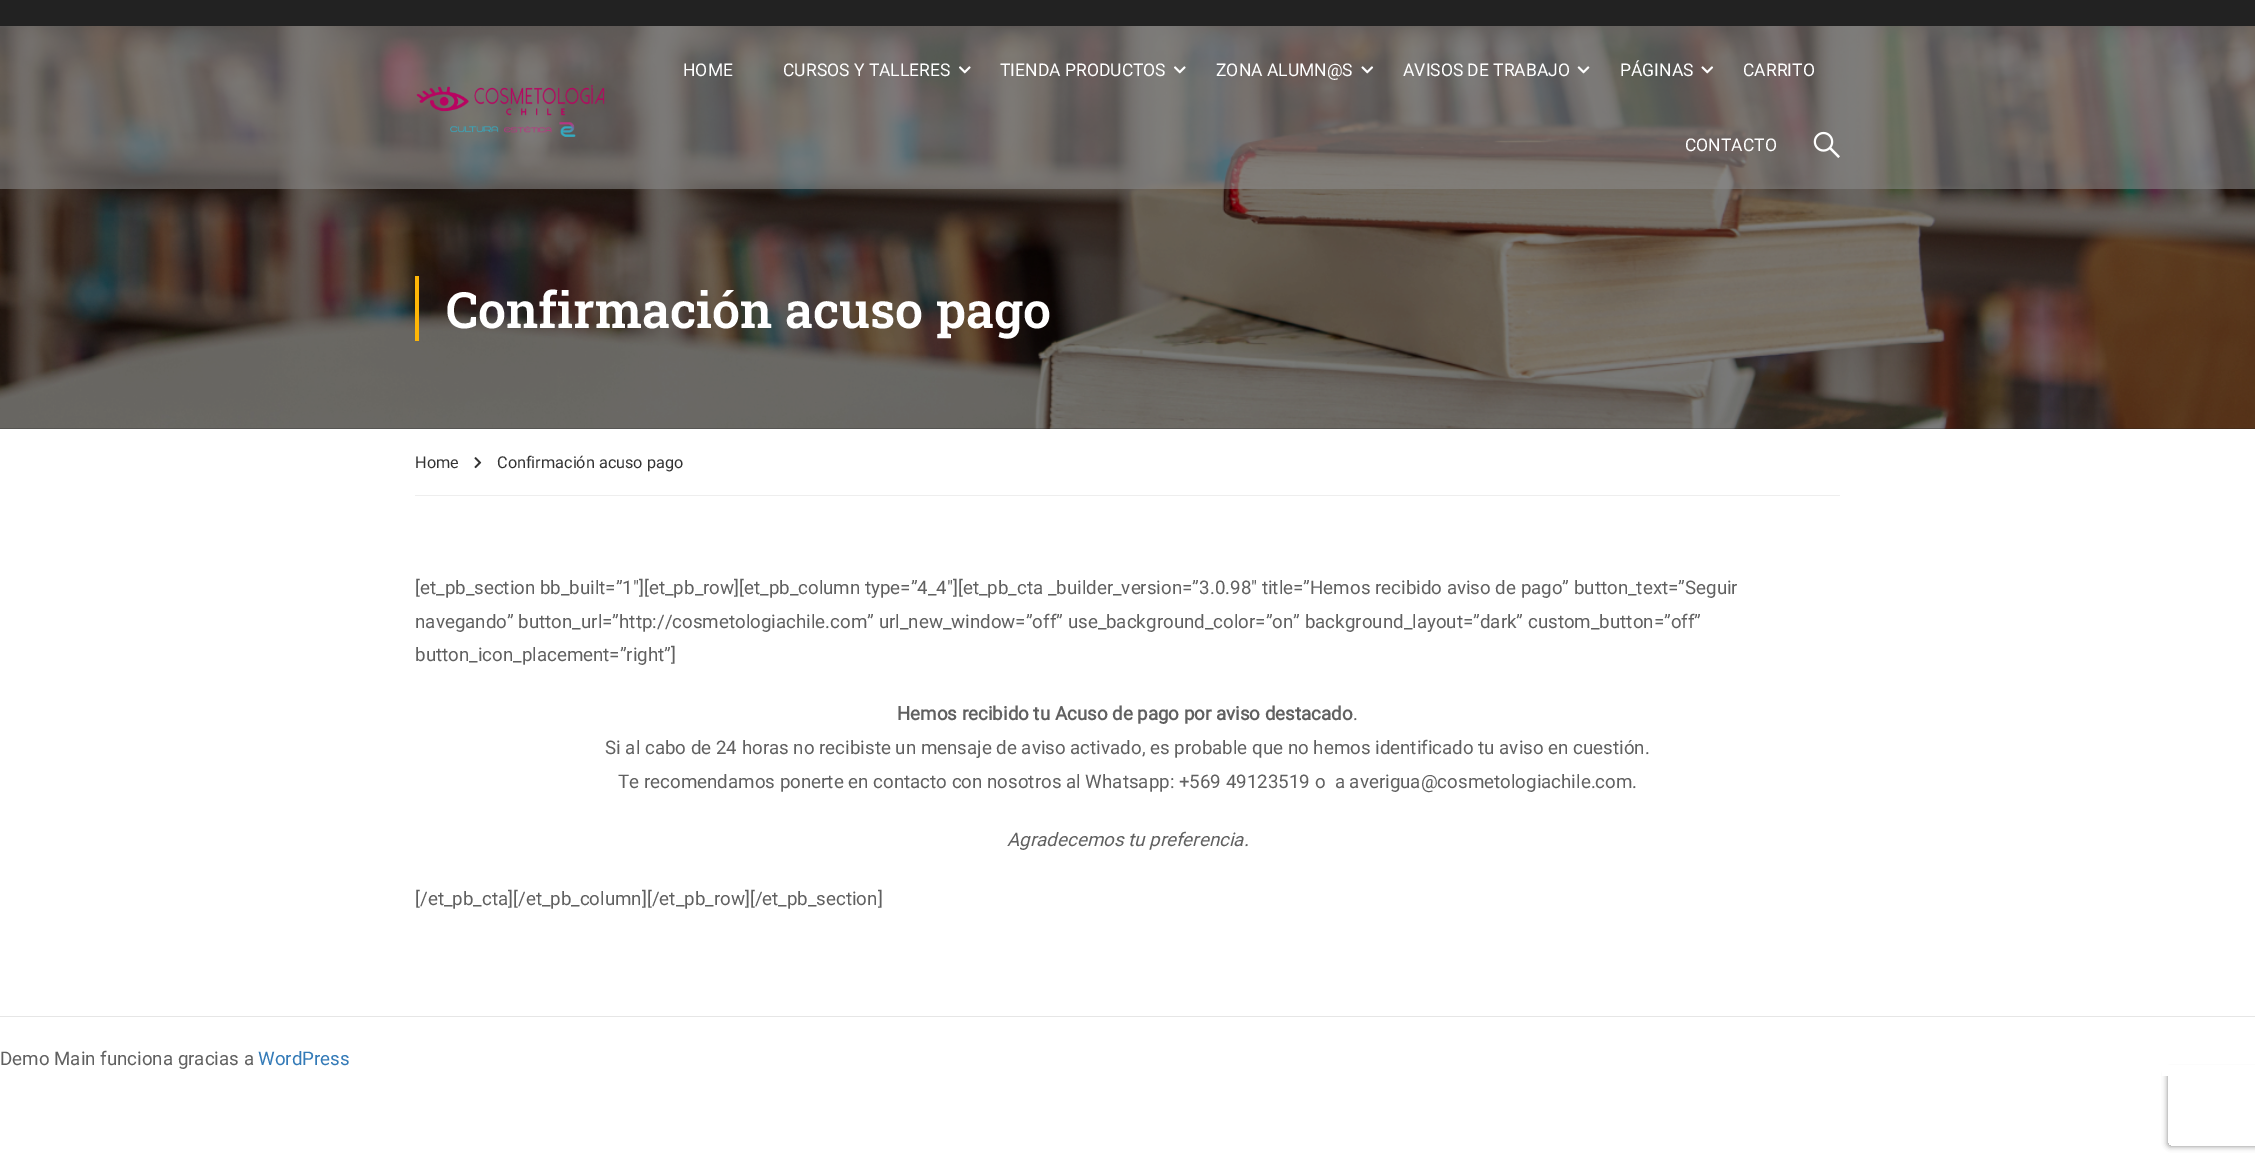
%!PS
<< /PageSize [2255 1163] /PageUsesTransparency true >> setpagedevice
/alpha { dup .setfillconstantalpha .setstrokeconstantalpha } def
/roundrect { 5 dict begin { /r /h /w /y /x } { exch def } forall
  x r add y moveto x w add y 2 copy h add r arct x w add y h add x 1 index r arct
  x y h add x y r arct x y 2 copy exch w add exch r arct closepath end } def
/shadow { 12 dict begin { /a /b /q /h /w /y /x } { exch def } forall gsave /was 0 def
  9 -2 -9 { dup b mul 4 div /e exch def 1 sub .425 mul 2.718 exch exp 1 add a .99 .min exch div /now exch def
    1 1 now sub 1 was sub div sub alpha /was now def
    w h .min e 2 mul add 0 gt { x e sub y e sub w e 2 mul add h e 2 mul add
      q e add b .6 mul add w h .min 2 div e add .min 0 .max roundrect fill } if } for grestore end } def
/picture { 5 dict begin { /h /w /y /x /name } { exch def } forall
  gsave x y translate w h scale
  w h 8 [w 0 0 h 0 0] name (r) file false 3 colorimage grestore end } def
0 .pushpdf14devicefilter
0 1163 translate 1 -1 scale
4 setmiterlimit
1 setgray
0 0 2255 1163 rectfill
(img8.rgb) 0 26 2255 403 picture
0.54 alpha
0.553 setgray
0 26 2255 163 rectfill
1 alpha
0.133 setgray
0 0 2255 26 rectfill
(img1.rgb) 416 85 189 52 picture
/Roboto-Regular [17.5 0 0 -17.5 0 0] selectfont
1 setgray
683 76 moveto (HOME) show
783 76 moveto (CURSOS Y TALLERES) show
(img2.rgb) 959 66 12 8 picture
1000 76 moveto (TIENDA PRODUCTOS) show
(img3.rgb) 1174 66 12 8 picture
1216 76 moveto (ZONA ALUMN@S) show
(img4.rgb) 1361 66 13 8 picture
1403 76 moveto (AVISOS DE TRABAJO) show
(img5.rgb) 1577 66 13 8 picture
1620 76 moveto (PÁGINAS) show
(img6.rgb) 1701 66 13 8 picture
1743 76 moveto (CARRITO) show
1685 151 moveto (CONTACTO) show
(img7.rgb) 1813 131 27 27 picture
gsave
newpath 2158 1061 moveto 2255 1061 lineto 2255 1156 lineto 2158 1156 lineto closepath 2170.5 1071 moveto 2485.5 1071 lineto 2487 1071 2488 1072 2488 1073.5 curveto 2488 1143.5 lineto 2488 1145 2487 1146 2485.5 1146 curveto 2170.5 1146 lineto 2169 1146 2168 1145 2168 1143.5 curveto 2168 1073.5 lineto 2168 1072 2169 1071 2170.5 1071 curveto closepath eoclip newpath
0.502 setgray
2168 1071 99 75 2.5 3 1 shadow
grestore
2162 1065 93 11 rectfill
1 0.714 0.024 setrgbcolor
415 276 4 65 rectfill
/RobotoSlab-SemiBold [50 0 0 -50 0 0] selectfont
1 setgray
446 328 moveto (Confirmación acuso pago) show
0.933 setgray
415 495 1425 1 rectfill
/Roboto-Regular [16.25 0 0 -16.25 0 0] selectfont
0.2 setgray
415 468 moveto (Home) show
(img9.rgb) 474 457 8 12 picture
497 468 moveto (Confirmación acuso pago) show
/Roboto-Regular [18.75 0 0 -18.75 0 0] selectfont
0.376 setgray
415 594 moveto ([et_pb_section bb_built=”1″][et_pb_row][et_pb_column type=”4_4″][et_pb_cta _builder_version=”3.0.98″ title=”Hemos recibido aviso de pago” button_text=”Seguir) show
415 628 moveto (navegando” button_url=”http://cosmetologiachile.com” url_new_window=”off” use_background_color=”on” background_layout=”dark” custom_button=”off”) show
415 661 moveto (button_icon_placement=”right”]) show
/Roboto-Bold [18.75 0 0 -18.75 0 0] selectfont
897 720 moveto (Hemos recibido tu Acuso de pago por aviso destacado) show
/Roboto-Regular [18.75 0 0 -18.75 0 0] selectfont
1353 720 moveto (.) show
605 754 moveto (Si al cabo de 24 horas no recibiste un mensaje de aviso activado, es probable que no hemos identificado tu aviso en cuestión.) show
618 788 moveto (Te recomendamos ponerte en contacto con nosotros al Whatsapp: +569 49123519 o  a averigua@cosmetologiachile.com.) show
/Roboto-Italic [18.75 0 0 -18.75 0 0] selectfont
1007 846 moveto (Agradecemos tu preferencia.) show
/Roboto-Regular [18.75 0 0 -18.75 0 0] selectfont
415 905 moveto ([/et_pb_cta][/et_pb_column][/et_pb_row][/et_pb_section]) show
0.902 setgray
0 1016 2255 1 rectfill
0.376 setgray
0 1065 moveto (Demo Main funciona gracias a) show
0.2 0.478 0.718 setrgbcolor
258 1065 moveto (WordPress) show
.poppdf14devicefilter showpage
